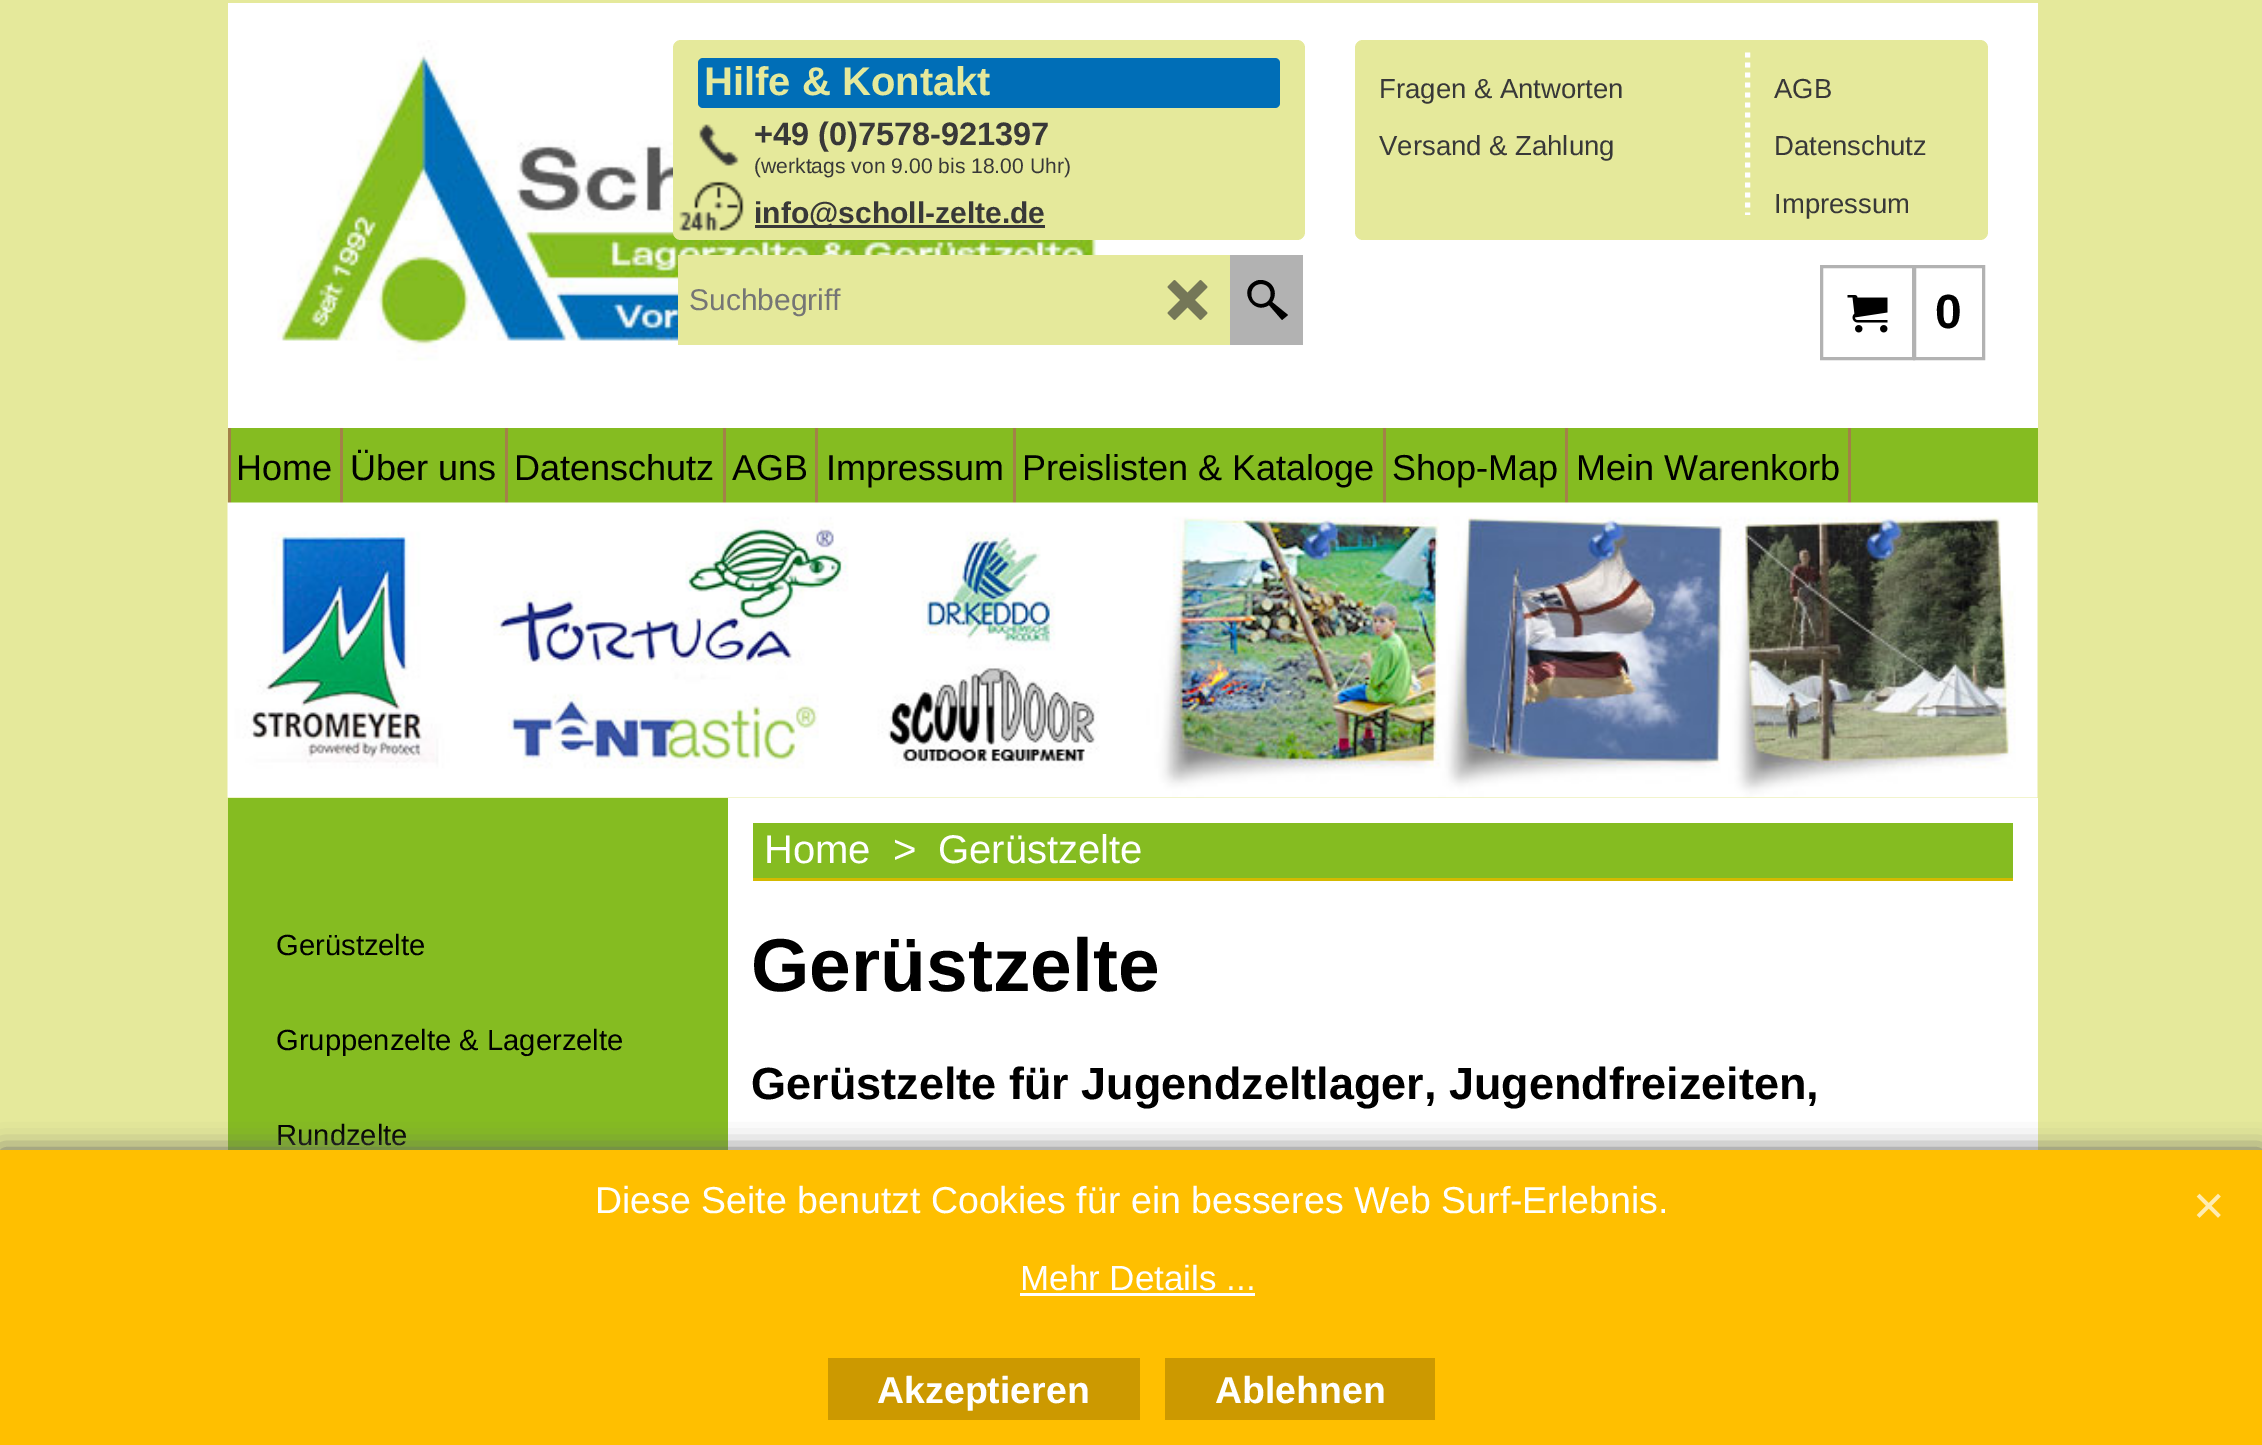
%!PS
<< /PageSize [2262 1445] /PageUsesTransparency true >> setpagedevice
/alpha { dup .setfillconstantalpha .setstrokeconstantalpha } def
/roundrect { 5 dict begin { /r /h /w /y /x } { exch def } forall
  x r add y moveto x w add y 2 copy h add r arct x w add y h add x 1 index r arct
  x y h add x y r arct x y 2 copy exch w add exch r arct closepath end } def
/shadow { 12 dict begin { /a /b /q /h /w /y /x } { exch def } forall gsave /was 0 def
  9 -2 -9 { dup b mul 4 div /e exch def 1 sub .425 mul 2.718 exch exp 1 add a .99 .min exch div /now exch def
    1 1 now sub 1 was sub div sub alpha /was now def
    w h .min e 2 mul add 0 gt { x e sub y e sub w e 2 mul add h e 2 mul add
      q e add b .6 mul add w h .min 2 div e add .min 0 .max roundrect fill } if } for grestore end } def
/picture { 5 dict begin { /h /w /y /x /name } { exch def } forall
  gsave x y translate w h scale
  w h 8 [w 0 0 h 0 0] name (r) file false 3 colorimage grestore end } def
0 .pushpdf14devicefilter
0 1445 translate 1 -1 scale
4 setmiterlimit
0.898 0.914 0.608 setrgbcolor
0 0 2262 1445 rectfill
1 setgray
228 3 1810 425 rectfill
(img1.rgb) 277 40 821 321 picture
0.898 0.914 0.608 setrgbcolor
673 40 632 200 8 roundrect fill
0 0.431 0.718 setrgbcolor
698 58 582 50 5 roundrect fill
/LiberationSans-Bold [40 0 0 -40 0 0] selectfont
0.898 0.914 0.608 setrgbcolor
704 95 moveto (Hilfe & Kontakt) show
(img2.rgb) 699 124 40 42 picture
/LiberationSans-Bold [32.5 0 0 -32.5 0 0] selectfont
0.22 setgray
754 145 moveto (+49 \(0\)7578-921397) show
/LiberationSans-Regular [21.1 0 0 -21.1 0 0] selectfont
754 173 moveto (\(werktags von 9.00 bis 18.00 Uhr\)) show
(img3.rgb) 679 181 65 50 picture
755 225 290 3 rectfill
/LiberationSans-Bold [30 0 0 -30 0 0] selectfont
754 223 moveto (info@scholl-zelte.de) show
0.898 0.914 0.608 setrgbcolor
1355 40 633 200 8 roundrect fill
/LiberationSans-Regular [27.5 0 0 -27.5 0 0] selectfont
0.22 setgray
1379 98 moveto (Fragen & Antworten) show
1379 155 moveto (Versand & Zahlung) show
1 setgray
5 setlinewidth
[5 5] 0 setdash
newpath 1747.5 52.5 moveto 1747.5 215 lineto stroke
0.22 setgray
1774 98 moveto (AGB) show
1774 155 moveto (Datenschutz) show
1774 213 moveto (Impressum) show
0.898 0.914 0.608 setrgbcolor
678 255 552 90 rectfill
/LiberationSans-Regular [30 0 0 -30 0 0] selectfont
0.459 setgray
689 310 moveto (Suchbegriff) show
(img4.rgb) 1167 280 41 40 picture
0.698 setgray
1230 255 73 90 rectfill
0 setgray
newpath 1272 302 moveto 1277 295 1275 286 1268 282 curveto 1264 280 1260 279 1256 281 curveto 1237 289 1253 316 1269 305 curveto 1282 320 lineto 1288 315 lineto closepath 1261 304 moveto 1248 304 1248 284 1261 284 curveto 1274 284 1274 304 1261 304 curveto closepath fill
0.698 setgray
3 setlinewidth
[] 0 setdash
1821.5 266.5 92 92 rectstroke
(img5.rgb) 1847 295 41 38 picture
1914.5 266.5 69 92 rectstroke
/LiberationSans-Bold [48 0 0 -48 0 0] selectfont
0 setgray
1935 328 moveto (0) show
0.522 0.737 0.129 setrgbcolor
231 428 1807 75 rectfill
0.639 0.506 0.282 setrgbcolor
228 428 3 75 rectfill
/LiberationSans-Regular [36 0 0 -36 0 0] selectfont
0 setgray
236 480 moveto (Home) show
0.639 0.506 0.282 setrgbcolor
340 428 3 75 rectfill
0 setgray
350 480 moveto (Über uns) show
0.639 0.506 0.282 setrgbcolor
505 428 3 75 rectfill
0 setgray
514 480 moveto (Datenschutz) show
0.639 0.506 0.282 setrgbcolor
723 428 3 75 rectfill
0 setgray
732 480 moveto (AGB) show
0.639 0.506 0.282 setrgbcolor
815 428 3 75 rectfill
0 setgray
826 480 moveto (Impressum) show
0.639 0.506 0.282 setrgbcolor
1013 428 3 75 rectfill
0 setgray
1022 480 moveto (Preislisten & Kataloge) show
0.639 0.506 0.282 setrgbcolor
1383 428 3 75 rectfill
0 setgray
1392 480 moveto (Shop-Map) show
0.639 0.506 0.282 setrgbcolor
1565 428 3 75 rectfill
0 setgray
1576 480 moveto (Mein Warenkorb) show
0.639 0.506 0.282 setrgbcolor
1848 428 3 75 rectfill
(img6.rgb) 227 502 1811 296 picture
1 setgray
728 798 1310 352 rectfill
0.522 0.737 0.129 setrgbcolor
228 798 500 352 rectfill
/LiberationSans-Regular [29.2 0 0 -29.2 0 0] selectfont
0 setgray
276 955 moveto (Gerüstzelte) show
276 1050 moveto (Gruppenzelte & Lagerzelte) show
276 1145 moveto (Rundzelte) show
0.522 0.737 0.129 setrgbcolor
753 823 1260 55 rectfill
0.831 0.725 0 setrgbcolor
753 878 1260 3 rectfill
/LiberationSans-Regular [40 0 0 -40 0 0] selectfont
1 setgray
764 863 moveto (Home) show
893 863 moveto (>) show
938 863 moveto (Gerüstzelte) show
/LiberationSans-Bold [75 0 0 -75 0 0] selectfont
0 setgray
751 991 moveto (Gerüstzelte) show
/LiberationSans-Bold [45 0 0 -45 0 0] selectfont
751 1099 moveto (Gerüstzelte für Jugendzeltlager, Jugendfreizeiten,) show
0.4 setgray
0 1150 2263 295 0 12.5 1 shadow
1 0.749 0 setrgbcolor
0 1150 2262 295 rectfill
/LiberationSans-Regular [37.5 0 0 -37.5 0 0] selectfont
1 setgray
595 1213 moveto (Diese Seite benutzt Cookies für ein besseres Web Surf-Erlebnis.) show
/LiberationSans-Regular [35 0 0 -35 0 0] selectfont
1020 1290 moveto (Mehr Details ...) show
1020 1293 235 3 rectfill
(img7.rgb) 2196 1193 25 25 picture
0.8 0.6 0 setrgbcolor
828 1358 312 62 rectfill
/LiberationSans-Bold [37.5 0 0 -37.5 0 0] selectfont
1 setgray
877 1403 moveto (Akzeptieren) show
0.8 0.6 0 setrgbcolor
1165 1358 270 62 rectfill
1 setgray
1215 1403 moveto (Ablehnen) show
.poppdf14devicefilter showpage
